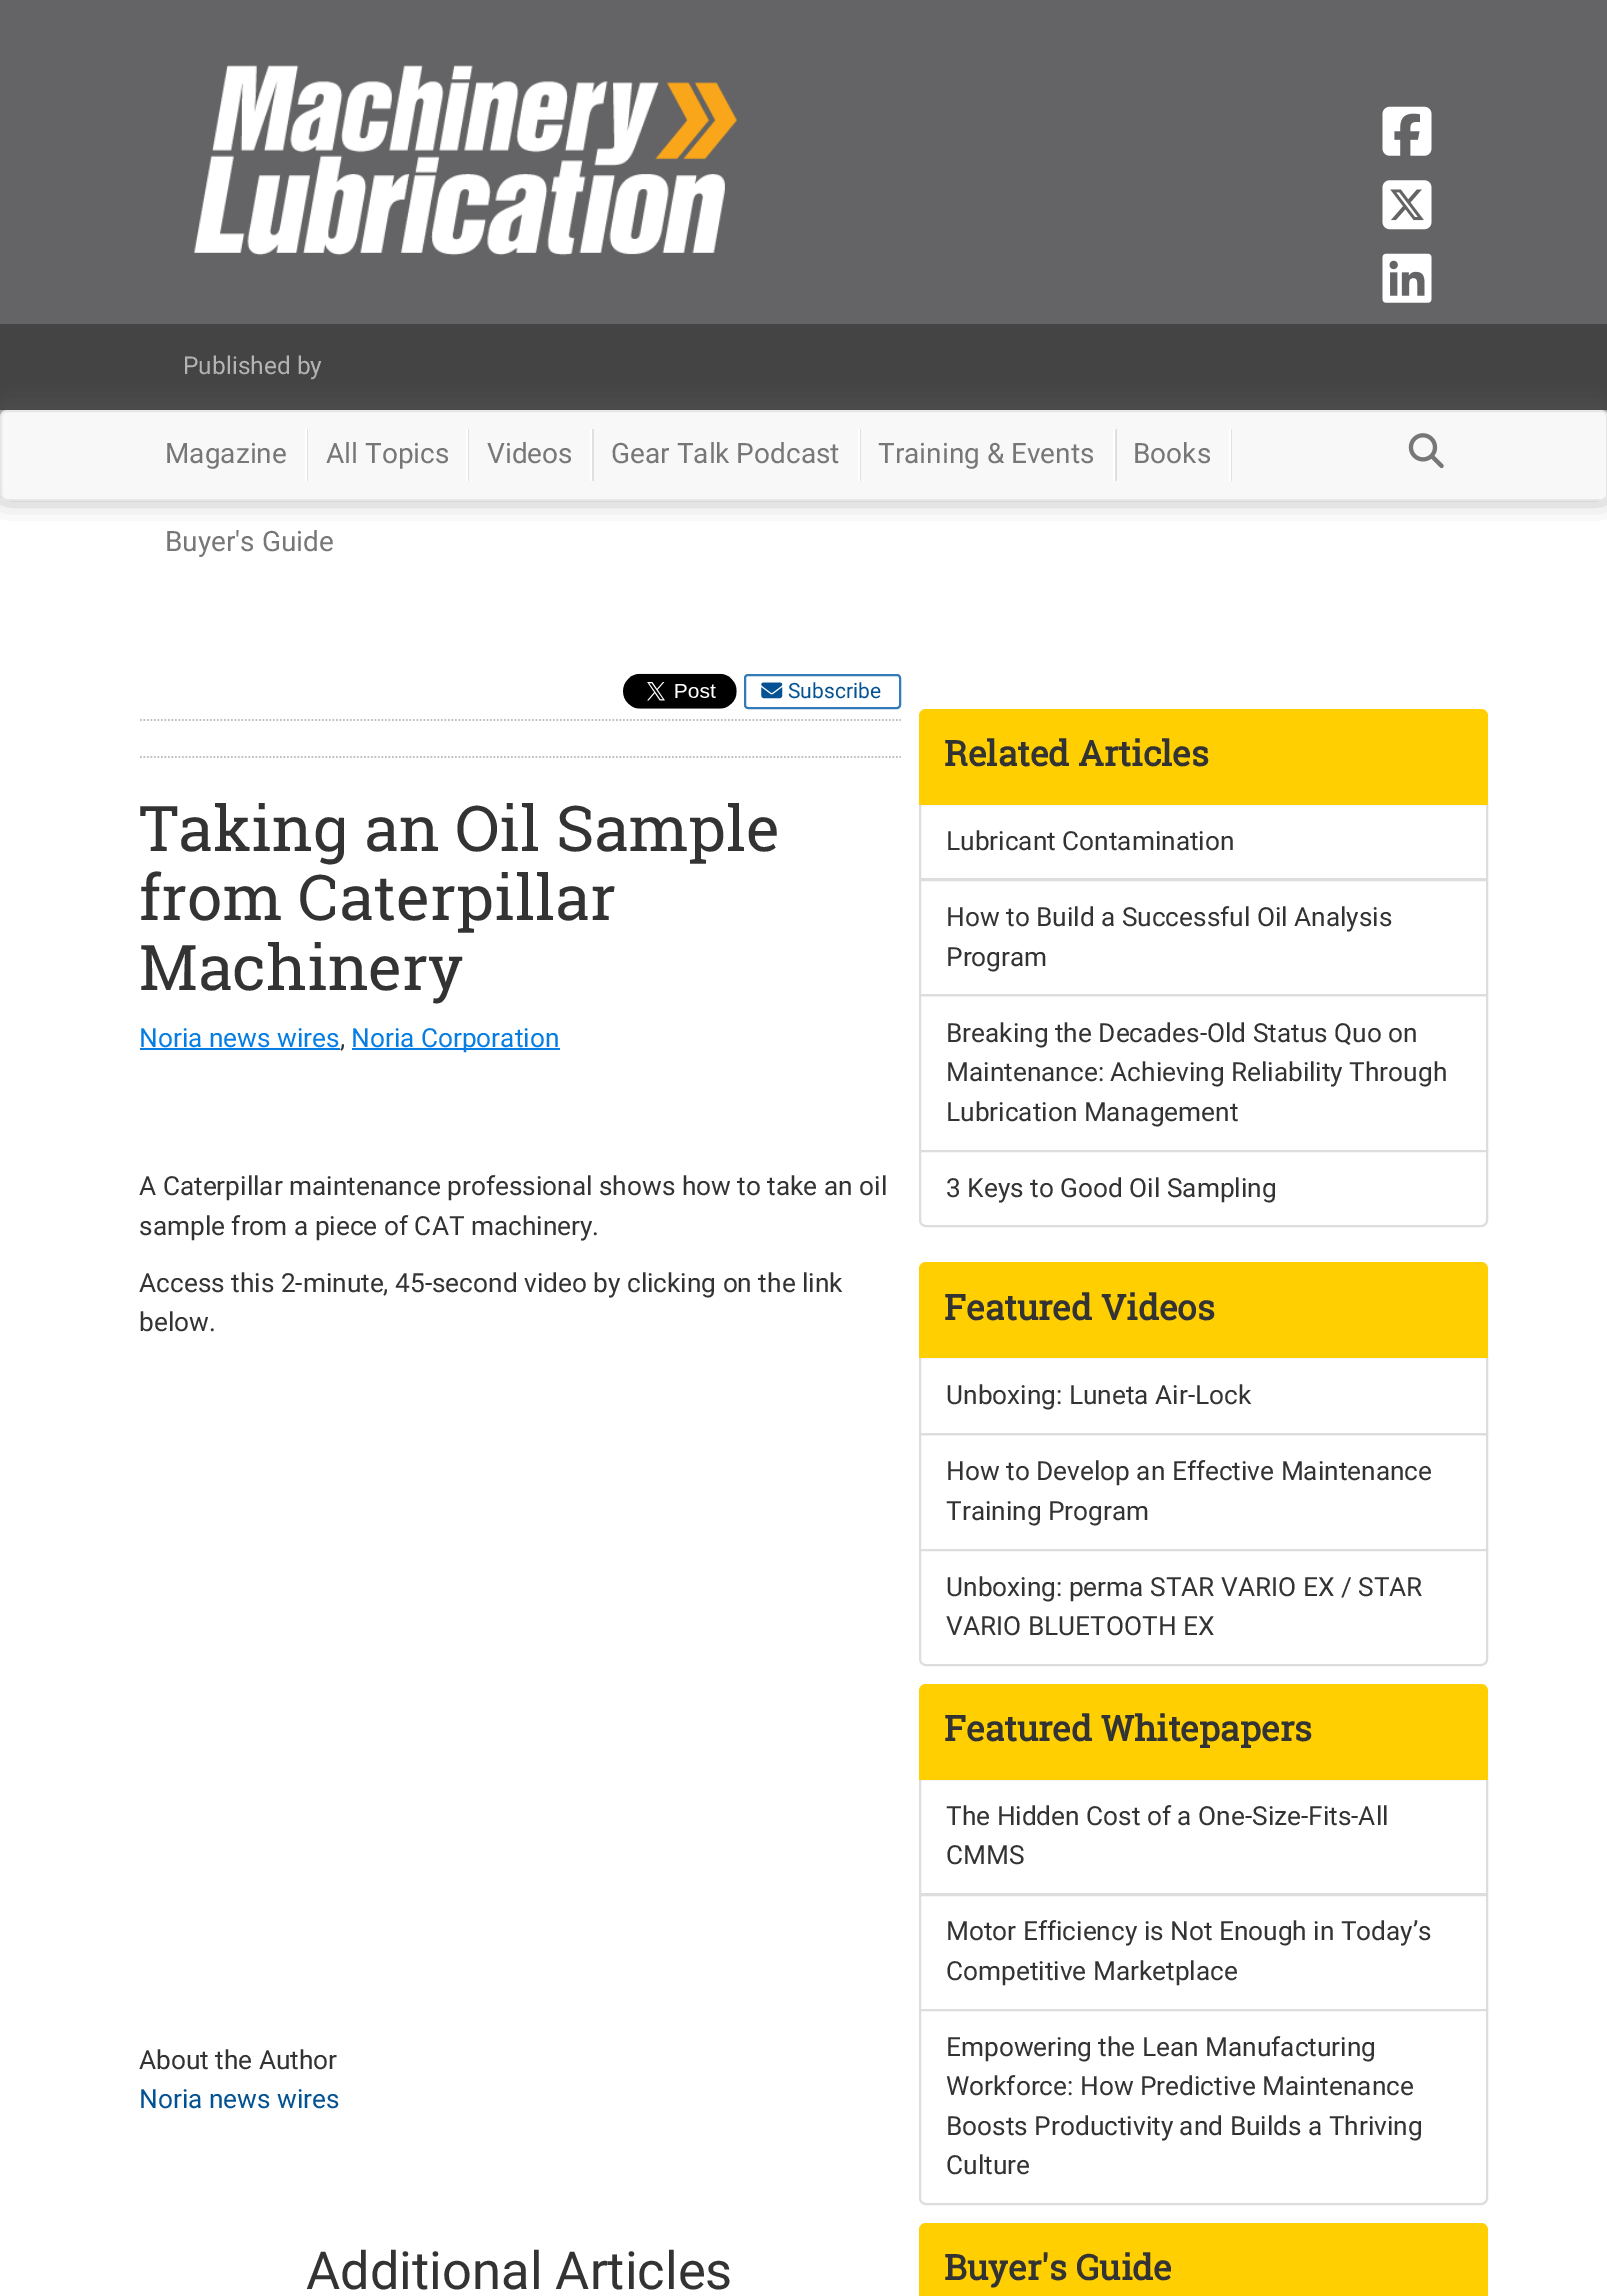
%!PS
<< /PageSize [1607 2296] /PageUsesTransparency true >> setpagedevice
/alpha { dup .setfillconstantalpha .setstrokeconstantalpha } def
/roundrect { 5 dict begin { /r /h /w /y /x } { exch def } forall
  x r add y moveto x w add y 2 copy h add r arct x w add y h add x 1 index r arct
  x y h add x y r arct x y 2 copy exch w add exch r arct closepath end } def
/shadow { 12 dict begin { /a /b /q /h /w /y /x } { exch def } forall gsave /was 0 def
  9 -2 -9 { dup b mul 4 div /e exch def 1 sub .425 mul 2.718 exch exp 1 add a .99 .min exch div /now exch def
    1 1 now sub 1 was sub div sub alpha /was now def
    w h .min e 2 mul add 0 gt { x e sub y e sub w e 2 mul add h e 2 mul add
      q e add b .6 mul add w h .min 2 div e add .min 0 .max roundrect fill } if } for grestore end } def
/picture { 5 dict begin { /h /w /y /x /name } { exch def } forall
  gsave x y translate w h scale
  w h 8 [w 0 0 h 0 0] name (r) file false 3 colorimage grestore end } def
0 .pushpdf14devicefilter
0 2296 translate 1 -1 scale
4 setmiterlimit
1 setgray
0 0 1607 2296 rectfill
0.392 0.392 0.4 setrgbcolor
0 0 1607 324 rectfill
(img1.rgb) 193 65 545 191 picture
(img2.rgb) 1382 106 50 50 picture
(img3.rgb) 1382 180 50 50 picture
(img4.rgb) 1382 253 50 50 picture
0.267 setgray
0 324 1607 86 rectfill
/Roboto-Regular [24.5 0 0 -24.5 0 0] selectfont
0.706 setgray
183 374 moveto (Published by) show
0.31 setgray
0 401 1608 91 7 13 1 shadow
0.973 setgray
1 411 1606 89 6 roundrect gsave fill grestore
0.906 setgray
2 setlinewidth
stroke
/Roboto-Regular [28 0 0 -28 0 0] selectfont
0.467 setgray
165 463 moveto (Magazine) show
0.878 setgray
307 429 1 52 rectfill
1 setgray
305 429 2 52 rectfill
0.467 setgray
326 463 moveto (All Topics) show
0.878 setgray
468 429 1 52 rectfill
1 setgray
466 429 2 52 rectfill
0.467 setgray
487 463 moveto (Videos) show
0.878 setgray
592 429 2 52 rectfill
1 setgray
590 429 2 52 rectfill
0.467 setgray
611 463 moveto (Gear Talk Podcast) show
0.878 setgray
860 429 1 52 rectfill
1 setgray
858 429 2 52 rectfill
0.467 setgray
878 463 moveto (Training & Events) show
0.878 setgray
1115 429 2 52 rectfill
1 setgray
1113 429 2 52 rectfill
0.467 setgray
1133 463 moveto (Books) show
0.878 setgray
1231 429 1 52 rectfill
1 setgray
1229 429 2 52 rectfill
0.467 setgray
165 551 moveto (Buyer's Guide) show
(img5.rgb) 1408 433 36 36 picture
0.753 setgray
1.8 setlinewidth
[1.75 1.75] 0 setdash
newpath 140 757 moveto 901 757 lineto stroke
newpath 140 720 moveto 901 720 lineto stroke
(img6.rgb) 623 673 114 36 picture
0.2 0.478 0.718 setrgbcolor
2 setlinewidth
[] 0 setdash
745 675 155 33 3 roundrect stroke
(img7.rgb) 761 682 22 17 picture
/Roboto-Regular [21 0 0 -21 0 0] selectfont
0.012 0.322 0.576 setrgbcolor
788 698 moveto (Subscribe) show
/RobotoSlab-Regular [63 0 0 -63 0 0] selectfont
0.2 setgray
139 851 moveto (Taking an Oil Sample) show
139 920 moveto (from Caterpillar) show
139 990 moveto (Machinery) show
/Roboto-Regular [26.25 0 0 -26.25 0 0] selectfont
0.024 0.49 0.886 setrgbcolor
139 1047 moveto (Noria news wires) show
140 1048 200 2 rectfill
0.2 setgray
340 1047 moveto (,) show
0.024 0.49 0.886 setrgbcolor
352 1048 208 2 rectfill
351 1047 moveto (Noria Corporation) show
0.2 setgray
139 1195 moveto (A Caterpillar maintenance professional shows how to take an oil) show
139 1235 moveto (sample from a piece of CAT machinery.) show
139 1292 moveto (Access this 2-minute, 45-second video by clicking on the link) show
139 1331 moveto (below.) show
139 2069 moveto (About the Author) show
0.012 0.322 0.576 setrgbcolor
139 2108 moveto (Noria news wires) show
/Roboto-Regular [52.5 0 0 -52.5 0 0] selectfont
0.2 setgray
306 2289 moveto (Additional Articles) show
0.867 setgray
920 804 567 75 rectstroke
1 0.812 0.004 setrgbcolor
newpath 926 709 moveto 1481 709 lineto 1485 709 1488 712 1488 716 curveto 1488 805 lineto 919 805 lineto 919 716 lineto 919 712 922 709 926 709 curveto closepath fill
/RobotoSlab-Bold [35 0 0 -35 0 0] selectfont
0.2 setgray
944 766 moveto (Related Articles) show
/Roboto-Regular [26.25 0 0 -26.25 0 0] selectfont
946 850 moveto (Lubricant Contamination) show
0.867 setgray
920 880 567 115 rectstroke
0.2 setgray
946 926 moveto (How to Build a Successful Oil Analysis) show
946 966 moveto (Program) show
0.867 setgray
920 995 567 156 rectstroke
0.2 setgray
946 1042 moveto (Breaking the Decades-Old Status Quo on) show
946 1081 moveto (Maintenance: Achieving Reliability Through) show
946 1121 moveto (Lubrication Management) show
0.95 alpha
1 setgray
newpath 920 1151 moveto 1487 1151 lineto 1487 1220 lineto 1487 1223.5 1484.5 1226 1481 1226 curveto 926 1226 lineto 922.5 1226 920 1223.5 920 1220 curveto closepath fill
1 alpha
0.867 setgray
newpath 920 1151 moveto 1487 1151 lineto 1487 1220 lineto 1487 1223.5 1484.5 1226 1481 1226 curveto 926 1226 lineto 922.5 1226 920 1223.5 920 1220 curveto closepath stroke
0.2 setgray
946 1197 moveto (3 Keys to Good Oil Sampling) show
0.867 setgray
920 1357 567 77 rectstroke
1 0.812 0.004 setrgbcolor
newpath 926 1262 moveto 1481 1262 lineto 1485 1262 1488 1265 1488 1269 curveto 1488 1358 lineto 919 1358 lineto 919 1269 lineto 919 1265 922 1262 926 1262 curveto closepath fill
/RobotoSlab-Bold [35 0 0 -35 0 0] selectfont
0.2 setgray
944 1320 moveto (Featured Videos) show
/Roboto-Regular [26.25 0 0 -26.25 0 0] selectfont
946 1404 moveto (Unboxing: Luneta Air-Lock) show
0.867 setgray
920 1434 567 116 rectstroke
0.2 setgray
946 1480 moveto (How to Develop an Effective Maintenance) show
946 1520 moveto (Training Program) show
0.95 alpha
1 setgray
newpath 920 1550 moveto 1487 1550 lineto 1487 1659 lineto 1487 1662.5 1484.5 1665 1481 1665 curveto 926 1665 lineto 922.5 1665 920 1662.5 920 1659 curveto closepath fill
1 alpha
0.867 setgray
newpath 920 1550 moveto 1487 1550 lineto 1487 1659 lineto 1487 1662.5 1484.5 1665 1481 1665 curveto 926 1665 lineto 922.5 1665 920 1662.5 920 1659 curveto closepath stroke
0.2 setgray
946 1596 moveto (Unboxing: perma STAR VARIO EX / STAR) show
946 1635 moveto (VARIO BLUETOOTH EX) show
0.867 setgray
920 1779 567 115 rectstroke
1 0.812 0.004 setrgbcolor
newpath 926 1684 moveto 1481 1684 lineto 1485 1684 1488 1687 1488 1691 curveto 1488 1780 lineto 919 1780 lineto 919 1691 lineto 919 1687 922 1684 926 1684 curveto closepath fill
/RobotoSlab-Bold [35 0 0 -35 0 0] selectfont
0.2 setgray
944 1741 moveto (Featured Whitepapers) show
/Roboto-Regular [26.25 0 0 -26.25 0 0] selectfont
946 1825 moveto (The Hidden Cost of a One-Size-Fits-All) show
946 1864 moveto (CMMS) show
0.867 setgray
920 1895 567 115 rectstroke
0.2 setgray
946 1940 moveto (Motor Efficiency is Not Enough in Today’s) show
946 1980 moveto (Competitive Marketplace) show
0.95 alpha
1 setgray
newpath 920 2010 moveto 1487 2010 lineto 1487 2198 lineto 1487 2201.5 1484.5 2204 1481 2204 curveto 926 2204 lineto 922.5 2204 920 2201.5 920 2198 curveto closepath fill
1 alpha
0.867 setgray
newpath 920 2010 moveto 1487 2010 lineto 1487 2198 lineto 1487 2201.5 1484.5 2204 1481 2204 curveto 926 2204 lineto 922.5 2204 920 2201.5 920 2198 curveto closepath stroke
0.2 setgray
946 2056 moveto (Empowering the Lean Manufacturing) show
946 2095 moveto (Workforce: How Predictive Maintenance) show
946 2135 moveto (Boosts Productivity and Builds a Thriving) show
946 2174 moveto (Culture) show
1 0.812 0.004 setrgbcolor
newpath 926 2223 moveto 1481 2223 lineto 1485 2223 1488 2226 1488 2230 curveto 1488 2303 lineto 919 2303 lineto 919 2230 lineto 919 2226 922 2223 926 2223 curveto closepath fill
/RobotoSlab-Bold [35 0 0 -35 0 0] selectfont
0.2 setgray
944 2280 moveto (Buyer's Guide) show
.poppdf14devicefilter showpage
